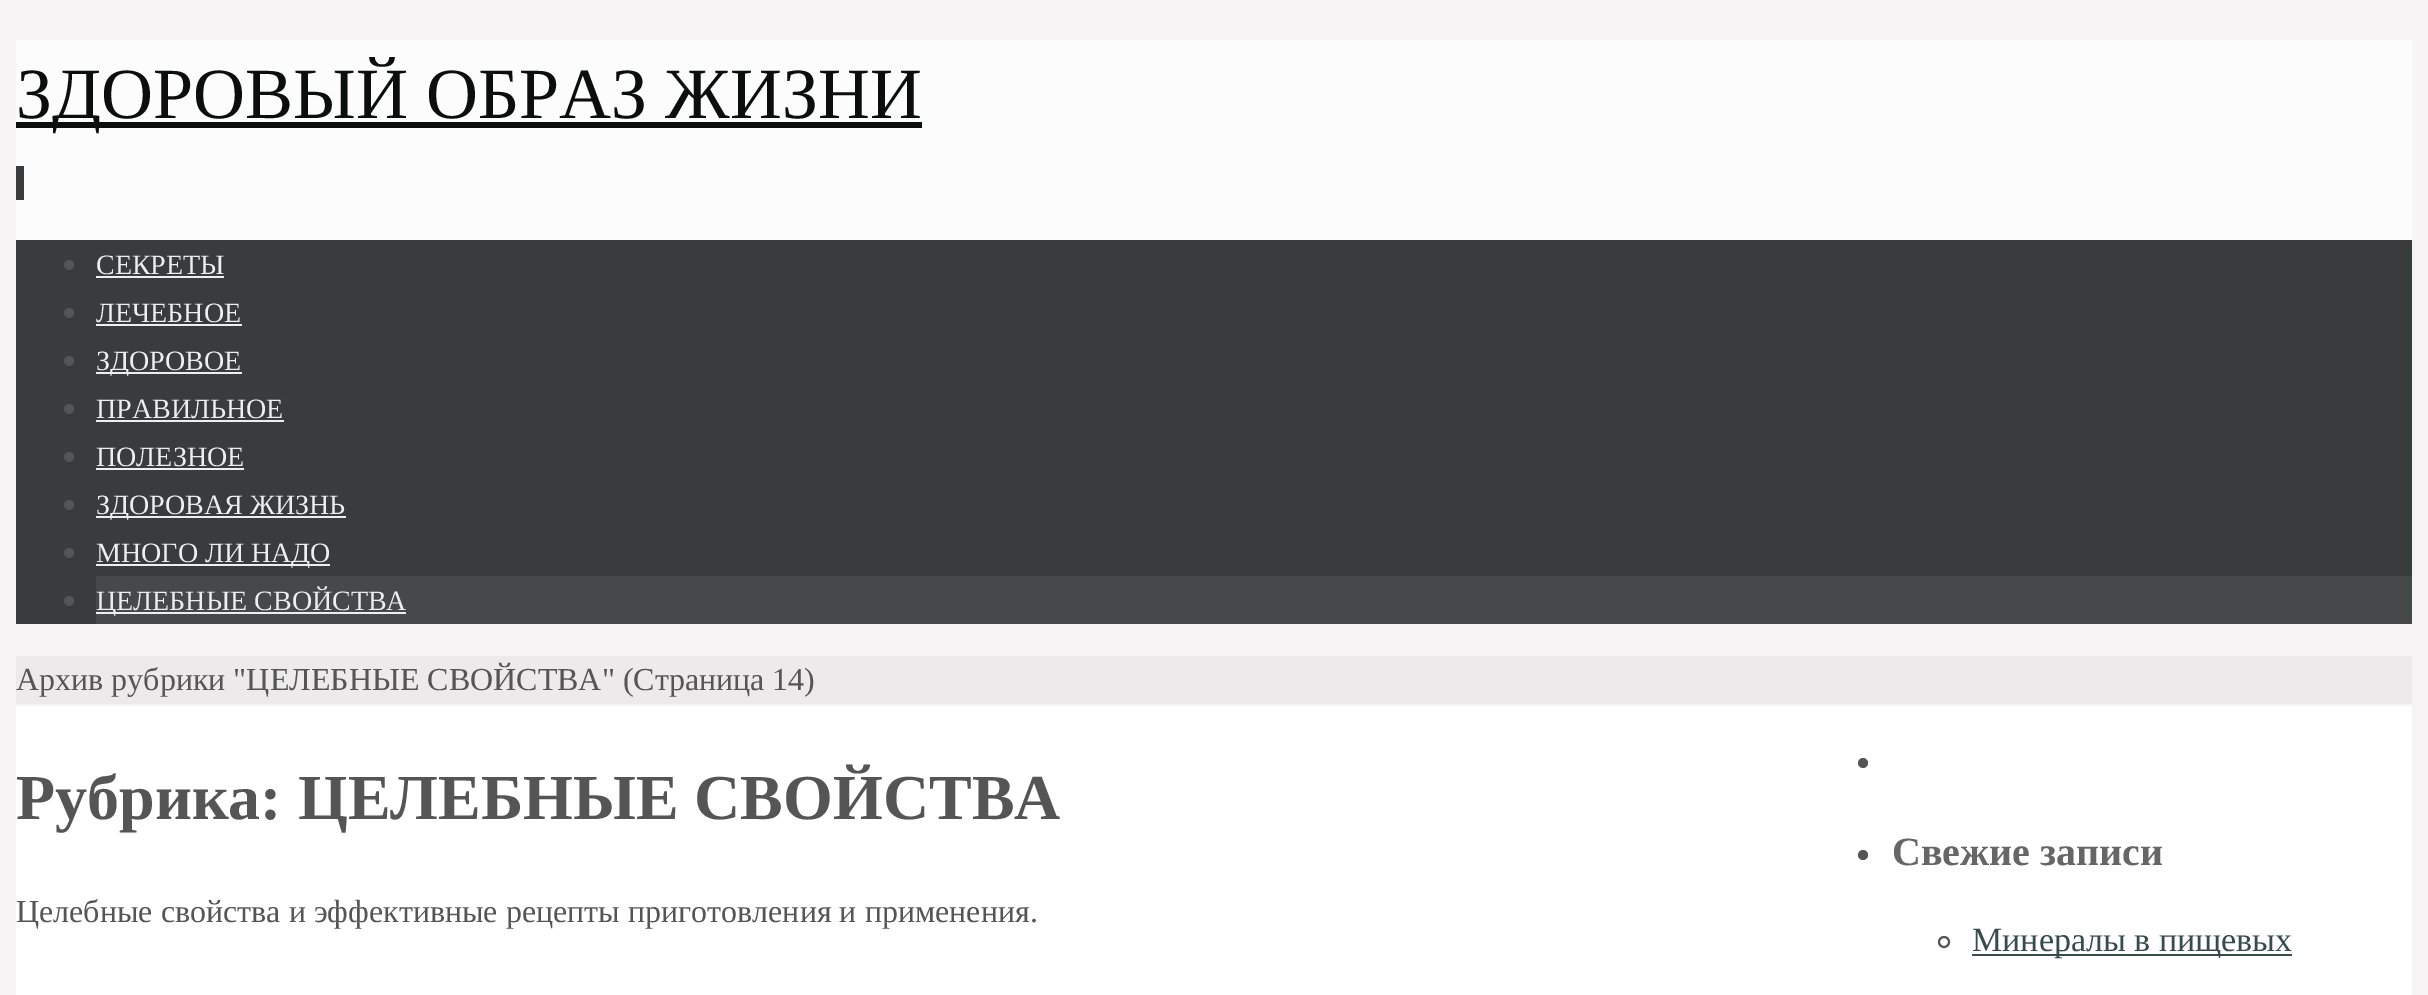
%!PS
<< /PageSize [2428 995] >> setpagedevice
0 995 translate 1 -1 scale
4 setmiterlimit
0.965 0.957 0.957 setrgbcolor
0 0 2428 995 rectfill
0.988 setgray
16 40 2396 200 rectfill
0.047 0.055 0.055 setrgbcolor
16 122 906 6 rectfill
/LiberationSerif-Regular [72 0 0 -72 0 0] selectfont
16 118 moveto (ЗДОРОВЫЙ ОБРАЗ ЖИЗНИ) show
0.227 0.231 0.239 setrgbcolor
16 166 8 34 rectfill
16 240 2396 384 rectfill
0.333 setgray
newpath 69 265 5 0 360 arc closepath fill
/LiberationSerif-Regular [28 0 0 -28 0 0] selectfont
0.933 setgray
96 274 moveto (СЕКРЕТЫ) show
96 276 128 2 rectfill
0.333 setgray
newpath 69 313 5 0 360 arc closepath fill
0.933 setgray
96 322 moveto (ЛЕЧЕБНОЕ) show
96 324 146 2 rectfill
0.333 setgray
newpath 69 361 5 0 360 arc closepath fill
0.933 setgray
96 372 146 2 rectfill
96 370 moveto (ЗДОРОВОЕ) show
0.333 setgray
newpath 69 409 5 0 360 arc closepath fill
0.933 setgray
96 418 moveto (ПРАВИЛЬНОЕ) show
96 420 188 2 rectfill
0.333 setgray
newpath 69 457 5 0 360 arc closepath fill
0.933 setgray
96 466 moveto (ПОЛЕЗНОЕ) show
96 468 148 2 rectfill
0.333 setgray
newpath 69 505 5 0 360 arc closepath fill
0.933 setgray
96 516 250 2 rectfill
96 514 moveto (ЗДОРОВАЯ ЖИЗНЬ) show
0.333 setgray
newpath 69 553 5 0 360 arc closepath fill
0.933 setgray
96 564 234 2 rectfill
96 562 moveto (МНОГО ЛИ НАДО) show
0.278 0.282 0.29 setrgbcolor
96 576 2316 48 rectfill
0.333 setgray
newpath 69 601 5 0 360 arc closepath fill
0.933 setgray
96 612 310 2 rectfill
96 610 moveto (ЦЕЛЕБНЫЕ СВОЙСТВА) show
0.925 0.918 0.918 setrgbcolor
16 656 2396 48 rectfill
/LiberationSerif-Regular [32 0 0 -32 0 0] selectfont
0.333 setgray
16 690 moveto (Архив рубрики "ЦЕЛЕБНЫЕ СВОЙСТВА" \(Страница 14\)) show
1 setgray
16 706 2396 289 rectfill
/LiberationSerif-Bold [64 0 0 -64 0 0] selectfont
0.333 setgray
16 819 moveto (Рубрика: ЦЕЛЕБНЫЕ СВОЙСТВА) show
/LiberationSerif-Regular [32 0 0 -32 0 0] selectfont
16 922 moveto (Целебные свойства и эффективные рецепты приготовления и применения.) show
newpath 1863 763 5 0 360 arc closepath fill
newpath 1863 855 5 0 360 arc closepath fill
/LiberationSerif-Bold [40 0 0 -40 0 0] selectfont
0.4 setgray
1892 865 moveto (Свежие записи) show
0.333 setgray
2 setlinewidth
newpath 1944 942 5 0 360 arc closepath stroke
0.208 0.298 0.29 setrgbcolor
1972 954 320 2 rectfill
/LiberationSerif-Regular [34 0 0 -34 0 0] selectfont
1972 951 moveto (Минералы в пищевых) show
showpage
